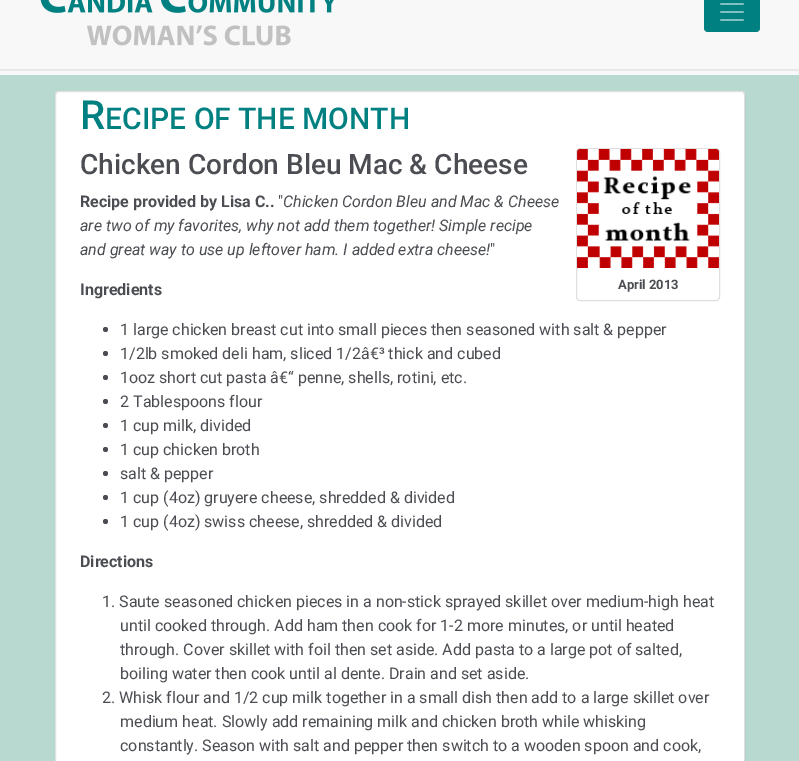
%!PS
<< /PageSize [799 761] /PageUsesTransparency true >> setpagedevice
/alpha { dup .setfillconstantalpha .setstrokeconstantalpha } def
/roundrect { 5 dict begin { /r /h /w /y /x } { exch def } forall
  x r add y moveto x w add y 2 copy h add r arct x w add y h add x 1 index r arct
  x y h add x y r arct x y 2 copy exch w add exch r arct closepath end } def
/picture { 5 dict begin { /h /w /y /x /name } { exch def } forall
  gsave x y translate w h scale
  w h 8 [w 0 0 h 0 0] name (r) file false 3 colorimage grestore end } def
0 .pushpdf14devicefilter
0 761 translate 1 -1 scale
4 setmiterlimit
0.722 0.851 0.816 setrgbcolor
0 0 799 761 rectfill
0.973 setgray
0 0 799 69 rectfill
0.91 setgray
0 69 799 2 rectfill
(img1.rgb) 40 0 294 46 picture
0 0.502 0.502 setrgbcolor
704 -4 56 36 4 roundrect fill
(img2.rgb) 720 3 24 18 picture
0.973 setgray
0 71 799 4 rectfill
1 setgray
55 91 690 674 4 roundrect fill
0.12 alpha
0 setgray
55.5 91.5 689 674 3.5 roundrect stroke
/Roboto-Medium [40 0 0 -40 0 0] selectfont
1 alpha
0 0.502 0.502 setrgbcolor
80 129 moveto (R) show
/Roboto-Medium [30 0 0 -30 0 0] selectfont
105 129 moveto (ECIPE OF THE MONTH) show
/Roboto-Medium [28 0 0 -28 0 0] selectfont
0.294 0.302 0.322 setrgbcolor
80 174 moveto (Chicken Cordon Bleu Mac & Cheese) show
/Roboto-Bold [16 0 0 -16 0 0] selectfont
80 207 moveto (Recipe provided by Lisa C..) show
/Roboto-Regular [16 0 0 -16 0 0] selectfont
278 207 moveto (") show
/Roboto-Italic [16 0 0 -16 0 0] selectfont
283 207 moveto (Chicken Cordon Bleu and Mac & Cheese) show
80 231 moveto (are two of my favorites, why not add them together! Simple recipe) show
80 255 moveto (and great way to use up leftover ham. I added extra cheese!) show
/Roboto-Regular [16 0 0 -16 0 0] selectfont
490 255 moveto (") show
/Roboto-Bold [16 0 0 -16 0 0] selectfont
80 295 moveto (Ingredients) show
0.875 setgray
576.5 148.5 143 152 3.5 roundrect stroke
(img3.rgb) 577 149 142 119 picture
/Roboto-Bold [13 0 0 -13 0 0] selectfont
0.294 0.302 0.322 setrgbcolor
618 289 moveto (April 2013) show
newpath 105.5 329.5 2.5 0 360 arc closepath fill
/Roboto-Regular [16 0 0 -16 0 0] selectfont
120 335 moveto (1 large chicken breast cut into small pieces then seasoned with salt & pepper) show
newpath 105.5 353.5 2.5 0 360 arc closepath fill
120 359 moveto (1/2lb smoked deli ham, sliced 1/2â€³ thick and cubed) show
newpath 105.5 377.5 2.5 0 360 arc closepath fill
120 383 moveto (1ooz short cut pasta â€“ penne, shells, rotini, etc.) show
newpath 105.5 401.5 2.5 0 360 arc closepath fill
120 407 moveto (2 Tablespoons flour) show
newpath 105.5 425.5 2.5 0 360 arc closepath fill
120 431 moveto (1 cup milk, divided) show
newpath 105.5 449.5 2.5 0 360 arc closepath fill
120 455 moveto (1 cup chicken broth) show
newpath 105.5 473.5 2.5 0 360 arc closepath fill
120 479 moveto (salt & pepper) show
newpath 105.5 497.5 2.5 0 360 arc closepath fill
120 503 moveto (1 cup \(4oz\) gruyere cheese, shredded & divided) show
newpath 105.5 521.5 2.5 0 360 arc closepath fill
120 527 moveto (1 cup \(4oz\) swiss cheese, shredded & divided) show
/Roboto-Bold [16 0 0 -16 0 0] selectfont
80 567 moveto (Directions) show
/Roboto-Regular [16 0 0 -16 0 0] selectfont
102 607 moveto (1. Saute seasoned chicken pieces in a non-stick sprayed skillet over medium-high heat) show
120 631 moveto (until cooked through. Add ham then cook for 1-2 more minutes, or until heated) show
120 655 moveto (through. Cover skillet with foil then set aside. Add pasta to a large pot of salted,) show
120 679 moveto (boiling water then cook until al dente. Drain and set aside.) show
102 703 moveto (2. Whisk flour and 1/2 cup milk together in a small dish then add to a large skillet over) show
120 727 moveto (medium heat. Slowly add remaining milk and chicken broth while whisking) show
120 751 moveto (constantly. Season with salt and pepper then switch to a wooden spoon and cook,) show
.poppdf14devicefilter showpage
